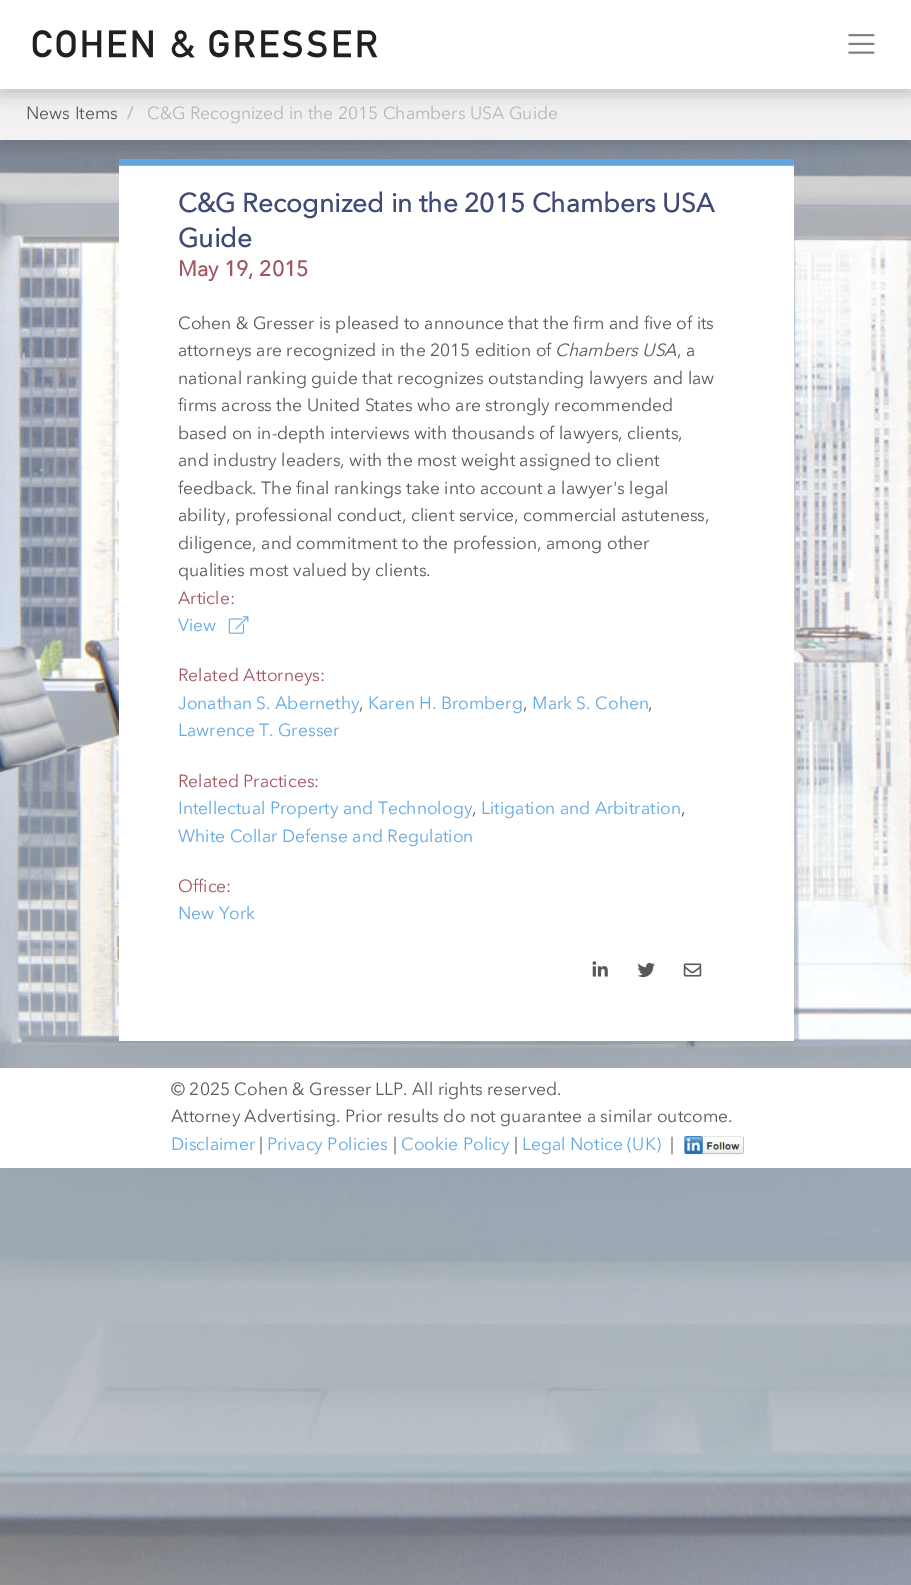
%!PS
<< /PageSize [911 1585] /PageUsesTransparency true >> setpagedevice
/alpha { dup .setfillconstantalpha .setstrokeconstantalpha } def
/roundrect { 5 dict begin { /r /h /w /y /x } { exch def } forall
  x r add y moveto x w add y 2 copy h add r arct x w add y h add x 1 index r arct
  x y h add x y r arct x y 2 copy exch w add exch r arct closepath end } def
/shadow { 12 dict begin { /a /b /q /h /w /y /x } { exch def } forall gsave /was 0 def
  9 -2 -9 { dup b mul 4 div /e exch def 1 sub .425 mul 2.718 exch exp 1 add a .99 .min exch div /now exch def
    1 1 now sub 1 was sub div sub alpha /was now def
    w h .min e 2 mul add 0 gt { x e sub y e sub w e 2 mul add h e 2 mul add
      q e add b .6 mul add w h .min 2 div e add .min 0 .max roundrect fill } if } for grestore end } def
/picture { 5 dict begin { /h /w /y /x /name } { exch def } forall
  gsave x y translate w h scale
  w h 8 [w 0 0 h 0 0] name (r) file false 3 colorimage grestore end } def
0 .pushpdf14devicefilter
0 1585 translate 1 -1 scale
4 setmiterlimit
1 setgray
0 0 911 1585 rectfill
(img1.rgb) 0 140 911 1445 picture
119 166 675 875 rectfill
0.384 0.659 0.898 setrgbcolor
119 159 675 6 rectfill
0.667 0.671 0.678 setrgbcolor
119 165 675 1 rectfill
0 setgray
0 78 911 70 0 12.5 0.1 shadow
0 75 911 70 0 5 0.1 shadow
0.949 setgray
0 89 911 51 rectfill
0 setgray
0 8 911 88 0 12.5 0.1 shadow
0 5 911 89 0 5 0.1 shadow
1 setgray
0 0 911 89 rectfill
(img2.rgb) 32 30 346 28 picture
(img3.rgb) 848 34 27 20 picture
/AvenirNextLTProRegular-Regular [17.5 0 0 -17.5 0 0] selectfont
0.345 0.349 0.357 setrgbcolor
26 119 moveto (News Items) show
0.667 0.671 0.678 setrgbcolor
127 119 moveto (/) show
0.706 0.718 0.725 setrgbcolor
147 119 moveto (C&G Recognized in the 2015 Chambers USA Guide) show
/AvenirNextLTProRegular-Bold [26.25 0 0 -26.25 0 0] selectfont
0.247 0.29 0.459 setrgbcolor
178 212 moveto (C&G Recognized in the 2015 Chambers USA) show
178 247 moveto (Guide) show
/AvenirNextLTProRegular-Bold [21.25 0 0 -21.25 0 0] selectfont
0.631 0.341 0.376 setrgbcolor
178 276 moveto (May 19, 2015) show
/AvenirNextLTProRegular-Regular [17.5 0 0 -17.5 0 0] selectfont
0.345 0.349 0.357 setrgbcolor
178 329 moveto (Cohen & Gresser is pleased to announce that the firm and five of its) show
178 356 moveto (attorneys are recognized in the 2015 edition of) show
/AvenirNextLTProRegular-Italic [17.5 0 0 -17.5 0 0] selectfont
555 356 moveto (Chambers USA) show
/AvenirNextLTProRegular-Regular [17.5 0 0 -17.5 0 0] selectfont
677 356 moveto (, a) show
178 384 moveto (national ranking guide that recognizes outstanding lawyers and law) show
178 411 moveto (firms across the United States who are strongly recommended) show
178 439 moveto (based on in-depth interviews with thousands of lawyers, clients,) show
178 466 moveto (and industry leaders, with the most weight assigned to client) show
178 494 moveto (feedback. The final rankings take into account a lawyer's legal) show
178 521 moveto (ability, professional conduct, client service, commercial astuteness,) show
178 549 moveto (diligence, and commitment to the profession, among other) show
178 576 moveto (qualities most valued by clients.) show
0.631 0.341 0.376 setrgbcolor
178 604 moveto (Article:) show
0.384 0.659 0.898 setrgbcolor
178 631 moveto (View) show
(img4.rgb) 228 616 21 18 picture
0.631 0.341 0.376 setrgbcolor
178 681 moveto (Related Attorneys:) show
0.384 0.659 0.898 setrgbcolor
178 709 moveto (Jonathan S. Abernethy) show
0.345 0.349 0.357 setrgbcolor
359 709 moveto (,) show
0.384 0.659 0.898 setrgbcolor
368 709 moveto (Karen H. Bromberg) show
0.345 0.349 0.357 setrgbcolor
523 709 moveto (,) show
0.384 0.659 0.898 setrgbcolor
532 709 moveto (Mark S. Cohen) show
0.345 0.349 0.357 setrgbcolor
648 709 moveto (,) show
0.384 0.659 0.898 setrgbcolor
178 736 moveto (Lawrence T. Gresser) show
0.631 0.341 0.376 setrgbcolor
178 787 moveto (Related Practices:) show
0.384 0.659 0.898 setrgbcolor
178 814 moveto (Intellectual Property and Technology) show
0.345 0.349 0.357 setrgbcolor
472 814 moveto (,) show
0.384 0.659 0.898 setrgbcolor
481 814 moveto (Litigation and Arbitration) show
0.345 0.349 0.357 setrgbcolor
681 814 moveto (,) show
0.384 0.659 0.898 setrgbcolor
178 842 moveto (White Collar Defense and Regulation) show
0.631 0.341 0.376 setrgbcolor
178 892 moveto (Office:) show
0.384 0.659 0.898 setrgbcolor
178 919 moveto (New York) show
(img5.rgb) 592 961 16 16 picture
(img6.rgb) 637 962 18 16 picture
(img7.rgb) 683 963 19 14 picture
1 setgray
0 1068 911 100 rectfill
0.345 0.349 0.357 setrgbcolor
171 1095 moveto (© 2025 Cohen & Gresser LLP. All rights reserved.) show
171 1122 moveto (Attorney Advertising. Prior results do not guarantee a similar outcome.) show
0.384 0.659 0.898 setrgbcolor
171 1150 moveto (Disclaimer) show
0.345 0.349 0.357 setrgbcolor
259 1150 moveto (|) show
0.384 0.659 0.898 setrgbcolor
267 1150 moveto (Privacy Policies) show
0.345 0.349 0.357 setrgbcolor
393 1150 moveto (|) show
0.384 0.659 0.898 setrgbcolor
401 1150 moveto (Cookie Policy) show
0.345 0.349 0.357 setrgbcolor
514 1150 moveto (|) show
0.384 0.659 0.898 setrgbcolor
522 1150 moveto (Legal Notice \(UK\)) show
0.345 0.349 0.357 setrgbcolor
670 1150 moveto (|) show
(img8.rgb) 684 1136 60 19 picture
.poppdf14devicefilter showpage
